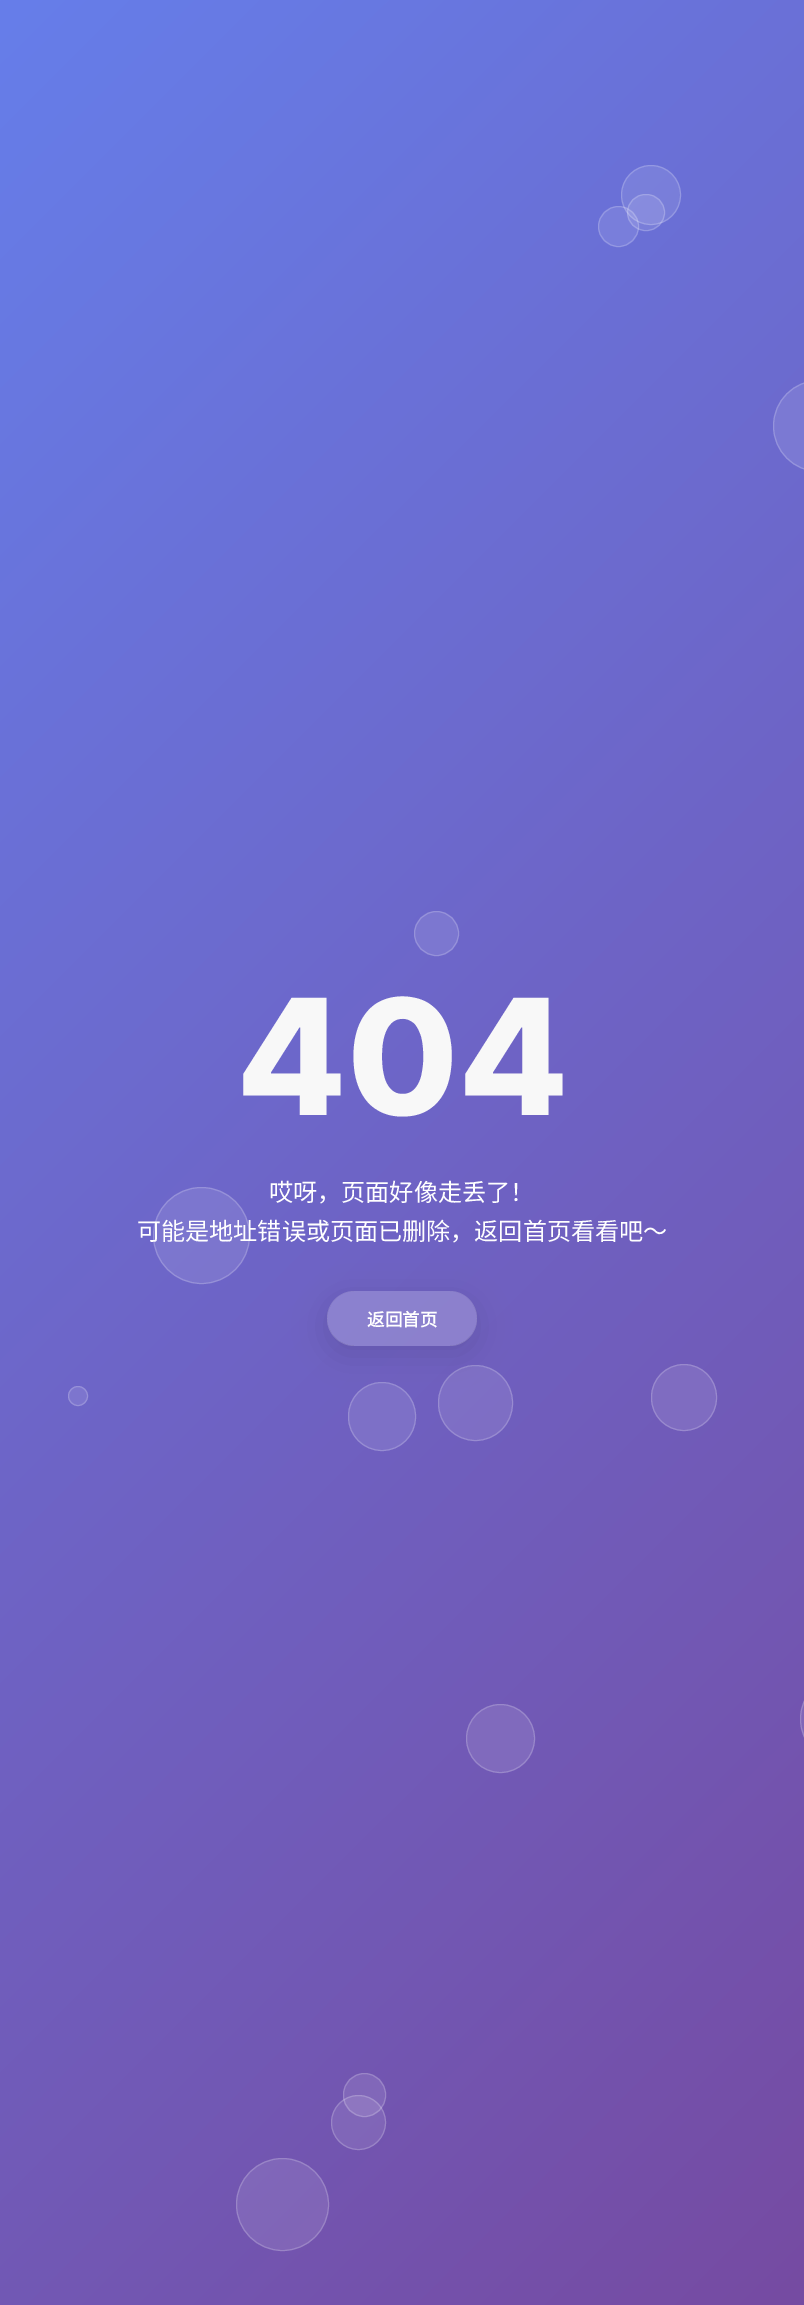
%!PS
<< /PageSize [804 2305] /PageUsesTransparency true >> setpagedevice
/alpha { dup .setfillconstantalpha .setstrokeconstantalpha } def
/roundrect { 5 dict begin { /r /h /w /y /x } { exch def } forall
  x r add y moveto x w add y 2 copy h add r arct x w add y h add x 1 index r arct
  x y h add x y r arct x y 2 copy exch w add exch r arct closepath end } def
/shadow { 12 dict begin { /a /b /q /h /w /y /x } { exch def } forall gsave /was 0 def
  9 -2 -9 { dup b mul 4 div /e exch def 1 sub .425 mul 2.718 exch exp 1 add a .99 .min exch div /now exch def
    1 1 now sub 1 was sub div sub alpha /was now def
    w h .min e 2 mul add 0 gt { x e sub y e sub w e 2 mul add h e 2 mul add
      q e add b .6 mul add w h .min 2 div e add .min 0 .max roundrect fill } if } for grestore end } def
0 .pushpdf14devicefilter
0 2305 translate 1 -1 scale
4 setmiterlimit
1 setgray
0 0 804 2305 rectfill
gsave newpath 0 0 moveto 804 0 lineto 804 2305 lineto 0 2305 lineto closepath clip newpath
<< /ShadingType 2 /ColorSpace /DeviceRGB /Coords [-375 375 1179 1930] /Extend [true true] /Function << /FunctionType 2 /Domain [0 1] /C0 [0.4 0.494 0.918] /C1 [0.463 0.294 0.635] /N 1 >> >> shfill grestore
0.475 0.494 0.859 setrgbcolor
newpath 618.5 226.5 20.5 0 360 arc closepath fill
0.2 alpha
1 setgray
newpath 618.5 226.5 20 0 360 arc closepath stroke
0.1 alpha
newpath 651 195 30 0 360 arc closepath fill
0.2 alpha
newpath 651 195 29.5 0 360 arc closepath stroke
0.1 alpha
627 194 38 37 18.5 roundrect fill
0.2 alpha
627.5 194.5 37 36 18 roundrect stroke
1 alpha
0.482 0.475 0.827 setrgbcolor
773 380 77 92 46 roundrect fill
0.2 alpha
1 setgray
773.5 380.5 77 91 45.5 roundrect stroke
1 alpha
0.486 0.467 0.816 setrgbcolor
newpath 436.5 933.5 22.5 0 360 arc closepath fill
0.2 alpha
1 setgray
newpath 436.5 933.5 22 0 360 arc closepath stroke
0.1 alpha
newpath 201.5 1235.5 48.5 0 360 arc closepath fill
0.2 alpha
newpath 201.5 1235.5 48 0 360 arc closepath stroke
1 alpha
0.49 0.459 0.808 setrgbcolor
newpath 78 1396 10 0 360 arc closepath fill
0.2 alpha
1 setgray
newpath 78 1396 9.5 0 360 arc closepath stroke
1 alpha
0.49 0.439 0.78 setrgbcolor
348 1382 68 69 34 roundrect fill
0.2 alpha
1 setgray
348.5 1382.5 67 68 33.5 roundrect stroke
0.1 alpha
438 1365 75 76 37.5 roundrect fill
0.2 alpha
438.5 1365.5 74 75 37 roundrect stroke
1 alpha
0.498 0.424 0.757 setrgbcolor
651 1364 66 67 33 roundrect fill
0.2 alpha
1 setgray
651.5 1364.5 65 66 32.5 roundrect stroke
1 alpha
0.502 0.416 0.741 setrgbcolor
newpath 500.5 1738.5 34.5 0 360 arc closepath fill
0.2 alpha
1 setgray
newpath 500.5 1738.5 34 0 360 arc closepath stroke
1 alpha
0.506 0.4 0.722 setrgbcolor
800 1674 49 90 45 roundrect fill
0.2 alpha
1 setgray
800.5 1674.5 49 89 44.5 roundrect stroke
1 alpha
0.506 0.404 0.725 setrgbcolor
343 2073 43 44 21.5 roundrect fill
0.2 alpha
1 setgray
343.5 2073.5 42 43 21 roundrect stroke
0.1 alpha
newpath 358.5 2122.5 27.5 0 360 arc closepath fill
0.2 alpha
newpath 358.5 2122.5 27 0 360 arc closepath stroke
0.1 alpha
newpath 282.5 2204.5 46.5 0 360 arc closepath fill
0.2 alpha
newpath 282.5 2204.5 46 0 360 arc closepath stroke
/Inter-ExtraBold [161 0 0 -161 0 0] selectfont
1 alpha
0.973 setgray
236 1115 moveto (404) show
/NotoSansCJKSC-Regular [24.1 0 0 -24.1 0 0] selectfont
1 setgray
269 1201 moveto (哎呀，页面好像走丢了！) show
137 1240 moveto (可能是地址错误或页面已删除，返回首页看看吧～) show
gsave
newpath 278 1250 moveto 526 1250 lineto 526 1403 lineto 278 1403 lineto closepath 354.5 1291 moveto 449.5 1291 lineto 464.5 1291 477 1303.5 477 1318.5 curveto 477 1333.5 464.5 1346 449.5 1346 curveto 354.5 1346 lineto 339.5 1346 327 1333.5 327 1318.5 curveto 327 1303.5 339.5 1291 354.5 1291 curveto closepath eoclip newpath
0 setgray
327 1299 150 55 27.5 16 0.1 shadow
grestore
0.2 alpha
327 1291 150 55 27.5 roundrect fill
/NotoSansCJKSC-Bold [17.5 0 0 -17.5 0 0] selectfont
1 alpha
367 1326 moveto (返回首页) show
.poppdf14devicefilter showpage
